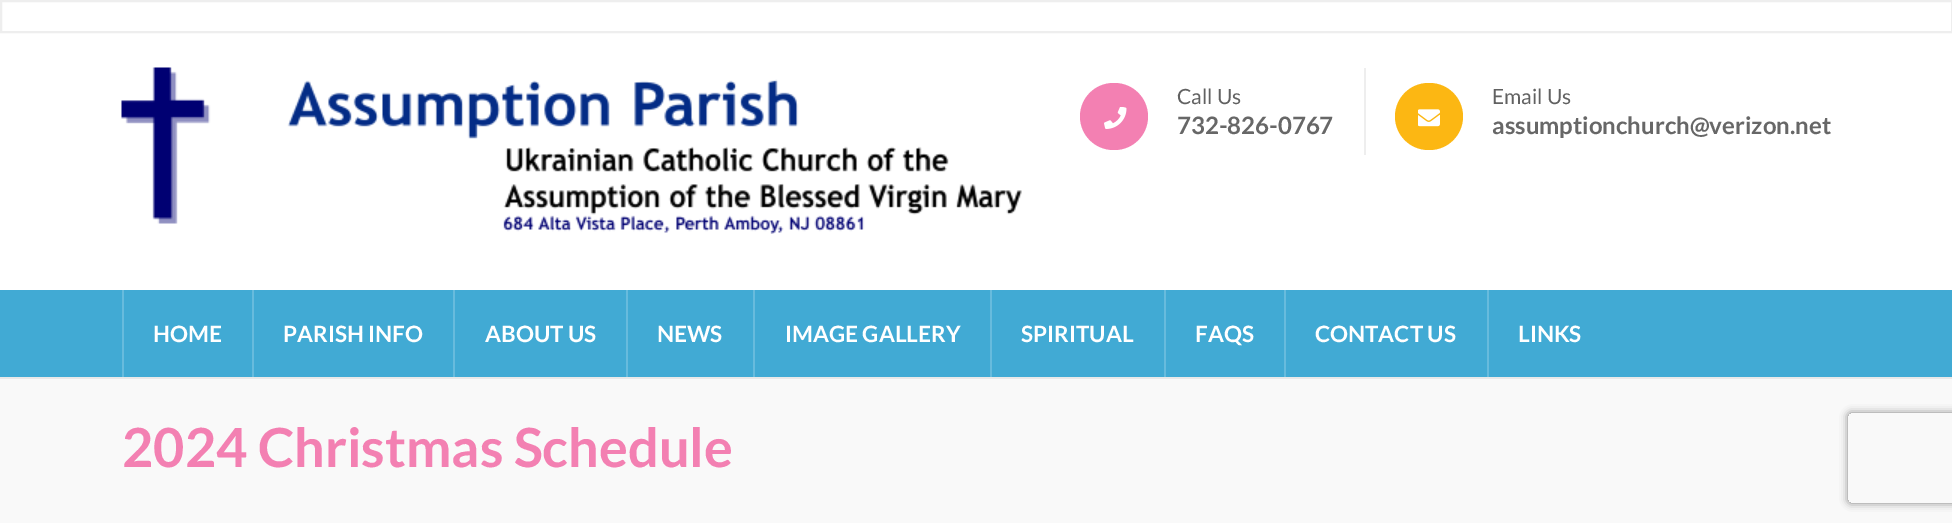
%!PS
<< /PageSize [1952 523] /PageUsesTransparency true >> setpagedevice
/alpha { dup .setfillconstantalpha .setstrokeconstantalpha } def
/roundrect { 5 dict begin { /r /h /w /y /x } { exch def } forall
  x r add y moveto x w add y 2 copy h add r arct x w add y h add x 1 index r arct
  x y h add x y r arct x y 2 copy exch w add exch r arct closepath end } def
/shadow { 12 dict begin { /a /b /q /h /w /y /x } { exch def } forall gsave /was 0 def
  9 -2 -9 { dup b mul 4 div /e exch def 1 sub .425 mul 2.718 exch exp 1 add a .99 .min exch div /now exch def
    1 1 now sub 1 was sub div sub alpha /was now def
    w h .min e 2 mul add 0 gt { x e sub y e sub w e 2 mul add h e 2 mul add
      q e add b .6 mul add w h .min 2 div e add .min 0 .max roundrect fill } if } for grestore end } def
/picture { 5 dict begin { /h /w /y /x /name } { exch def } forall
  gsave x y translate w h scale
  w h 8 [w 0 0 h 0 0] name (r) file false 3 colorimage grestore end } def
0 .pushpdf14devicefilter
0 523 translate 1 -1 scale
4 setmiterlimit
1 setgray
0 0 1952 523 rectfill
0.933 setgray
2 setlinewidth
1 1 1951 31 rectstroke
(img1.rgb) 121 67 901 167 picture
0.953 0.502 0.698 setrgbcolor
1080 83 68 67 33.5 roundrect fill
/Lato-Regular [21 0 0 -21 0 0] selectfont
0.38 setgray
1177 104 moveto (Call Us) show
(img2.rgb) 1104 107 23 22 picture
/Lato-Bold [24 0 0 -24 0 0] selectfont
0.404 setgray
1177 134 moveto (732-826-0767) show
0.933 setgray
1364 68 2 87 rectfill
0.988 0.718 0.075 setrgbcolor
1395 83 68 67 33.5 roundrect fill
/Lato-Regular [21 0 0 -21 0 0] selectfont
0.38 setgray
1492 104 moveto (Email Us) show
(img3.rgb) 1418 109 22 18 picture
/Lato-Bold [24 0 0 -24 0 0] selectfont
0.404 setgray
1492 134 moveto (assumptionchurch@verizon.net) show
0.255 0.667 0.831 setrgbcolor
0 290 1952 87 rectfill
0.404 0.733 0.867 setrgbcolor
122 290 2 87 rectfill
/Lato-Bold [22.5 0 0 -22.5 0 0] selectfont
1 setgray
153 342 moveto (HOME) show
0.404 0.733 0.867 setrgbcolor
252 290 2 87 rectfill
1 setgray
283 342 moveto (PARISH INFO) show
0.404 0.733 0.867 setrgbcolor
453 290 2 87 rectfill
1 setgray
485 342 moveto (ABOUT US) show
0.404 0.733 0.867 setrgbcolor
626 290 2 87 rectfill
1 setgray
657 342 moveto (NEWS) show
0.404 0.733 0.867 setrgbcolor
753 290 2 87 rectfill
1 setgray
785 342 moveto (IMAGE GALLERY) show
0.404 0.733 0.867 setrgbcolor
990 290 2 87 rectfill
1 setgray
1021 342 moveto (SPIRITUAL) show
0.404 0.733 0.867 setrgbcolor
1164 290 2 87 rectfill
1 setgray
1195 342 moveto (FAQS) show
0.404 0.733 0.867 setrgbcolor
1284 290 2 87 rectfill
1 setgray
1315 342 moveto (CONTACT US) show
0.404 0.733 0.867 setrgbcolor
1487 290 2 87 rectfill
1 setgray
1518 342 moveto (LINKS) show
0.976 setgray
0 379 1952 144 rectfill
0.914 setgray
0 377 1952 2 rectfill
/Lato-Bold [54 0 0 -54 0 0] selectfont
0.953 0.502 0.698 setrgbcolor
122 467 moveto (2024 Christmas Schedule) show
gsave
newpath 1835 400 moveto 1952 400 lineto 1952 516 lineto 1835 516 lineto closepath 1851 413 moveto 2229 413 lineto 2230.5 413 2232 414.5 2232 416 curveto 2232 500 lineto 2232 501.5 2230.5 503 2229 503 curveto 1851 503 lineto 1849.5 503 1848 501.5 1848 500 curveto 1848 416 lineto 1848 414.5 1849.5 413 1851 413 curveto closepath eoclip newpath
0.502 setgray
1848 413 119 90 3 4 1 shadow
grestore
.poppdf14devicefilter showpage
